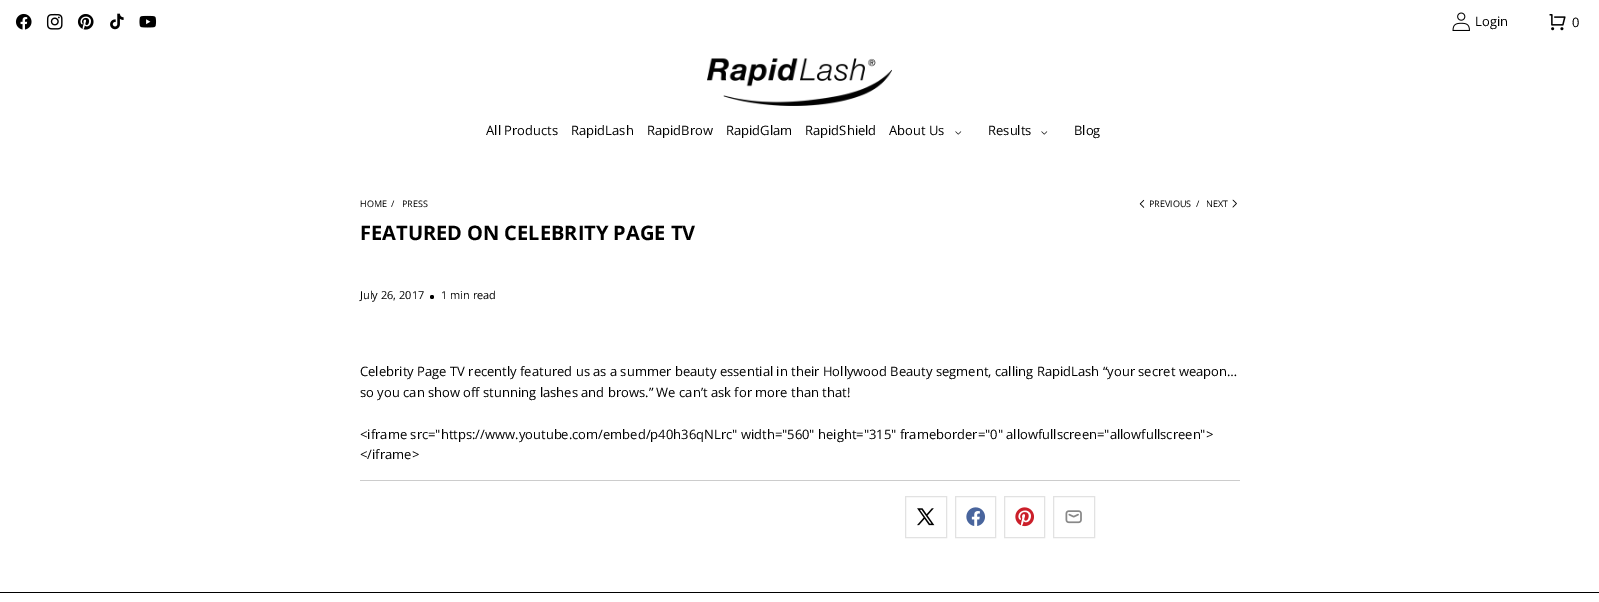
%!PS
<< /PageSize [1599 602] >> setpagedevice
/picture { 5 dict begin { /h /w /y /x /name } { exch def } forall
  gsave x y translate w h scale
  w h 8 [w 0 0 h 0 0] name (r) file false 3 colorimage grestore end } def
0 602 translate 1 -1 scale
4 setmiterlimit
1 setgray
0 0 1599 602 rectfill
(img1.rgb) 15 13 17 17 picture
(img2.rgb) 46 13 17 17 picture
(img3.rgb) 77 14 17 16 picture
(img4.rgb) 110 13 14 17 picture
(img5.rgb) 139 15 18 13 picture
(img6.rgb) 1452 12 18 19 picture
/OpenSans-Regular [13 0 0 -13 0 0] selectfont
0 setgray
1475 26 moveto (Login) show
(img7.rgb) 1549 14 17 17 picture
1572 27 moveto (0) show
(img8.rgb) 707 58 185 48 picture
486 135 moveto (All Products) show
571 135 moveto (RapidLash) show
647 135 moveto (RapidBrow) show
726 135 moveto (RapidGlam) show
805 135 moveto (RapidShield) show
889 135 moveto (About Us) show
(img9.rgb) 955 131 7 4 picture
988 135 moveto (Results) show
(img9.rgb) 1041 131 7 4 picture
1074 135 moveto (Blog) show
/OpenSans-Regular [9 0 0 -9 0 0] selectfont
360 207 moveto (HOME) show
391 207 moveto (/) show
402 207 moveto (PRESS) show
(img10.rgb) 1139 199 6 9 picture
1149 207 moveto (PREVIOUS) show
1196 207 moveto (/) show
1206 207 moveto (NEXT) show
(img11.rgb) 1232 199 5 9 picture
/OpenSans-Bold [20 0 0 -20 0 0] selectfont
360 240 moveto (FEATURED ON CELEBRITY PAGE TV) show
/OpenSans-Regular [11 0 0 -11 0 0] selectfont
360 299 moveto (July 26, 2017) show
newpath 432 297 2 0 360 arc closepath fill
441 299 moveto (1 min read) show
/OpenSans-Regular [13 0 0 -13 0 0] selectfont
360 376 moveto (Celebrity Page TV recently featured us as a summer beauty essential in their Hollywood Beauty segment, calling RapidLash “your secret weapon…) show
360 397 moveto (so you can show off stunning lashes and brows.” We can’t ask for more than that!) show
360 439 moveto (<iframe src="https://www.youtube.com/embed/p40h36qNLrc" width="560" height="315" frameborder="0" allowfullscreen="allowfullscreen">) show
360 459 moveto (</iframe>) show
0.8 setgray
360 480 880 1 rectfill
0.886 setgray
905.5 496.5 41 41 rectstroke
(img12.rgb) 917 508 18 18 picture
955.5 496.5 40 41 rectstroke
(img13.rgb) 966 507 20 19 picture
1004.5 496.5 40 41 rectstroke
(img14.rgb) 1015 507 19 20 picture
1053.5 496.5 41 41 rectstroke
(img15.rgb) 1065 510 17 14 picture
0 setgray
0 592 1599 1 rectfill
showpage
